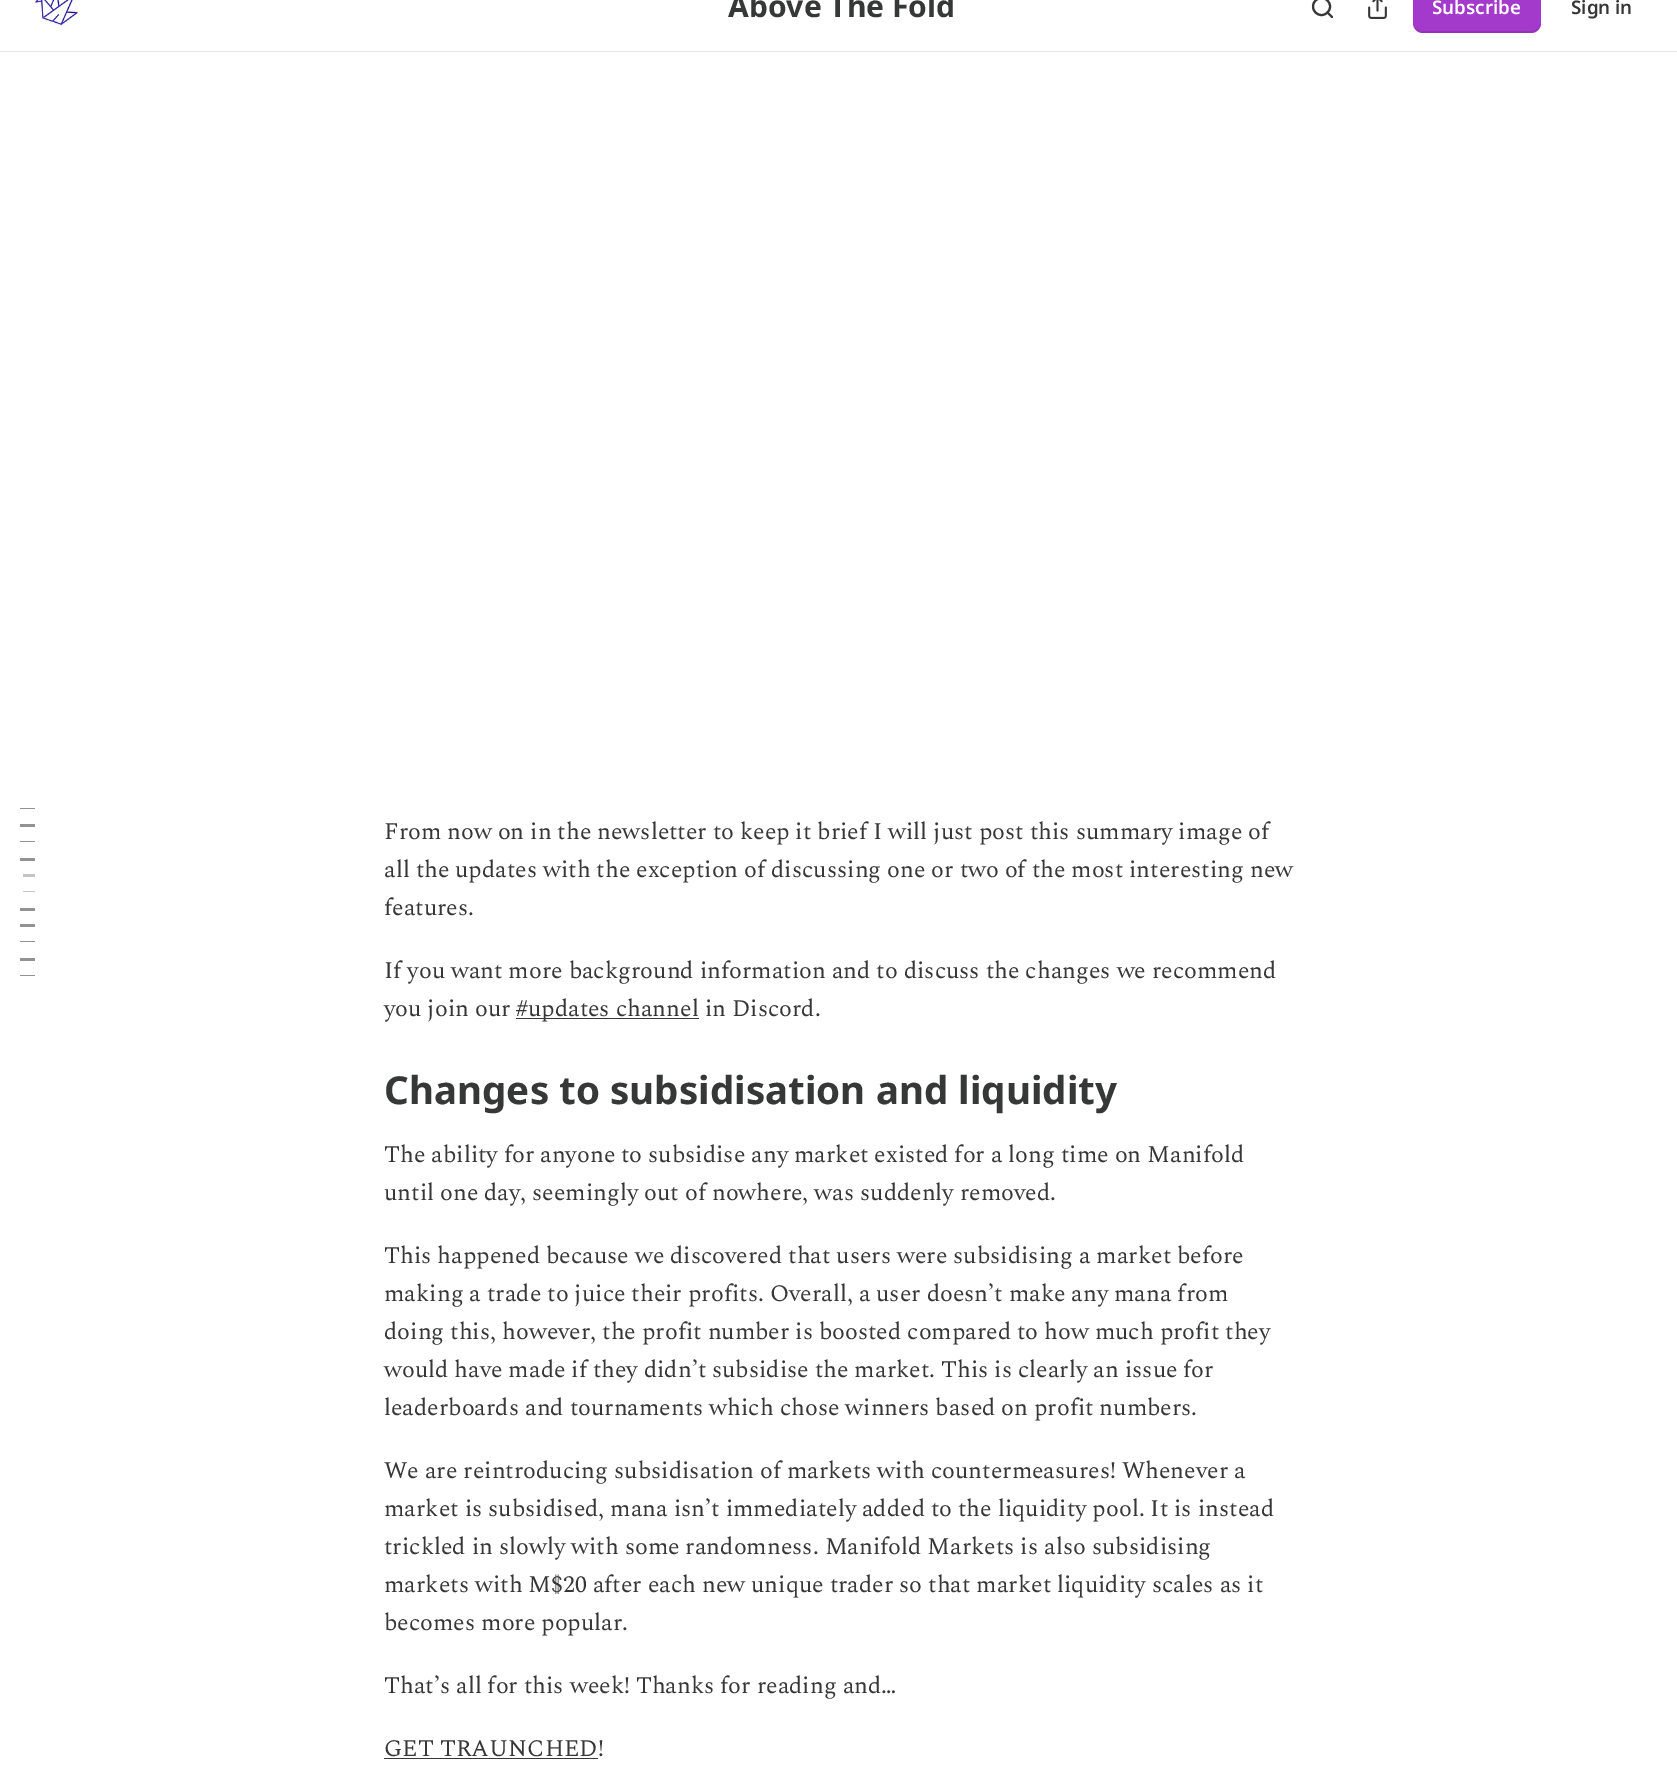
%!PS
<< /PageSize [1677 1783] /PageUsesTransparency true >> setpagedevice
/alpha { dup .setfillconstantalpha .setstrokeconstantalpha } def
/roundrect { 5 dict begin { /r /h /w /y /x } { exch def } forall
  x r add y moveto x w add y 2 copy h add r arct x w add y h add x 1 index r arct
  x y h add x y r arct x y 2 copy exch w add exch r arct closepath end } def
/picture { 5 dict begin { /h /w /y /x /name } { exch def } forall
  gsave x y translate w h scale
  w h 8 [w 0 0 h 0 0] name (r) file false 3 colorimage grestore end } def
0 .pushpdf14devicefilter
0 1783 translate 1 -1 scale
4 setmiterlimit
1 setgray
0 0 1677 1783 rectfill
0.902 setgray
0 51 1677 1 rectfill
(img1.rgb) 31 0 49 28 picture
/NotoSans-Bold [30 0 0 -30 0 0] selectfont
0.212 0.216 0.216 setrgbcolor
728 17 moveto (Above The Fold) show
2.1 setlinewidth
newpath 1321.5 6.5 8.5 0 360 arc closepath stroke
1 setlinecap
1 setlinejoin
newpath 1332 17 moveto 1327.5 12.5 lineto stroke
(img2.rgb) 1368 0 19 19 picture
0.639 0.227 0.796 setrgbcolor
1413 -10 128 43 10 roundrect fill
0.1 alpha
0 setgray
newpath 1414 26 moveto 1415 30 1419 33 1423 33 curveto 1531 33 lineto 1537 33 1541 29 1541 23 curveto 1541 21 lineto 1541 27 1537 31 1531 31 curveto 1422 31 lineto 1419 31 1415 29 1414 26 curveto closepath fill
/NotoSans-SemiBold [18.75 0 0 -18.75 0 0] selectfont
1 alpha
1 setgray
1432 14 moveto (Subscribe) show
0.212 0.216 0.216 setrgbcolor
1571 14 moveto (Sign in) show
0.573 setgray
20 808 15 1 rectfill
20 824 15 3 rectfill
20 841 15 1 rectfill
20 858 15 3 rectfill
0.773 setgray
23 874 12 3 rectfill
23 891 12 1 rectfill
0.573 setgray
20 908 15 3 rectfill
20 924 15 3 rectfill
20 941 15 1 rectfill
20 958 15 3 rectfill
20 975 15 1 rectfill
/Spectral-Regular [23.75 0 0 -23.75 0 0] selectfont
0.212 0.216 0.216 setrgbcolor
384 839 moveto (From now on in the newsletter to keep it brief I will just post this summary image of) show
384 877 moveto (all the updates with the exception of discussing one or two of the most interesting new) show
384 915 moveto (features.) show
384 978 moveto (If you want more background information and to discuss the changes we recommend) show
384 1016 moveto (you join our) show
516 1018 183 1 rectfill
516 1016 moveto (#updates channel in Discord.) show
/NotoSans-Bold [38.6 0 0 -38.6 0 0] selectfont
384 1104 moveto (Changes to subsidisation and liquidity) show
/Spectral-Regular [23.75 0 0 -23.75 0 0] selectfont
384 1162 moveto (The ability for anyone to subsidise any market existed for a long time on Manifold) show
384 1200 moveto (until one day, seemingly out of nowhere, was suddenly removed.) show
384 1263 moveto (This happened because we discovered that users were subsidising a market before) show
384 1301 moveto (making a trade to juice their profits. Overall, a user doesn’t make any mana from) show
384 1339 moveto (doing this, however, the profit number is boosted compared to how much profit they) show
384 1377 moveto (would have made if they didn’t subsidise the market. This is clearly an issue for) show
384 1415 moveto (leaderboards and tournaments which chose winners based on profit numbers.) show
384 1478 moveto (We are reintroducing subsidisation of markets with countermeasures! Whenever a) show
384 1516 moveto (market is subsidised, mana isn’t immediately added to the liquidity pool. It is instead) show
384 1554 moveto (trickled in slowly with some randomness. Manifold Markets is also subsidising) show
384 1592 moveto (markets with M$20 after each new unique trader so that market liquidity scales as it) show
384 1630 moveto (becomes more popular.) show
384 1693 moveto (That’s all for this week! Thanks for reading and…) show
384 1756 moveto (GET TRAUNCHED!) show
384 1758 214 1 rectfill
.poppdf14devicefilter showpage
